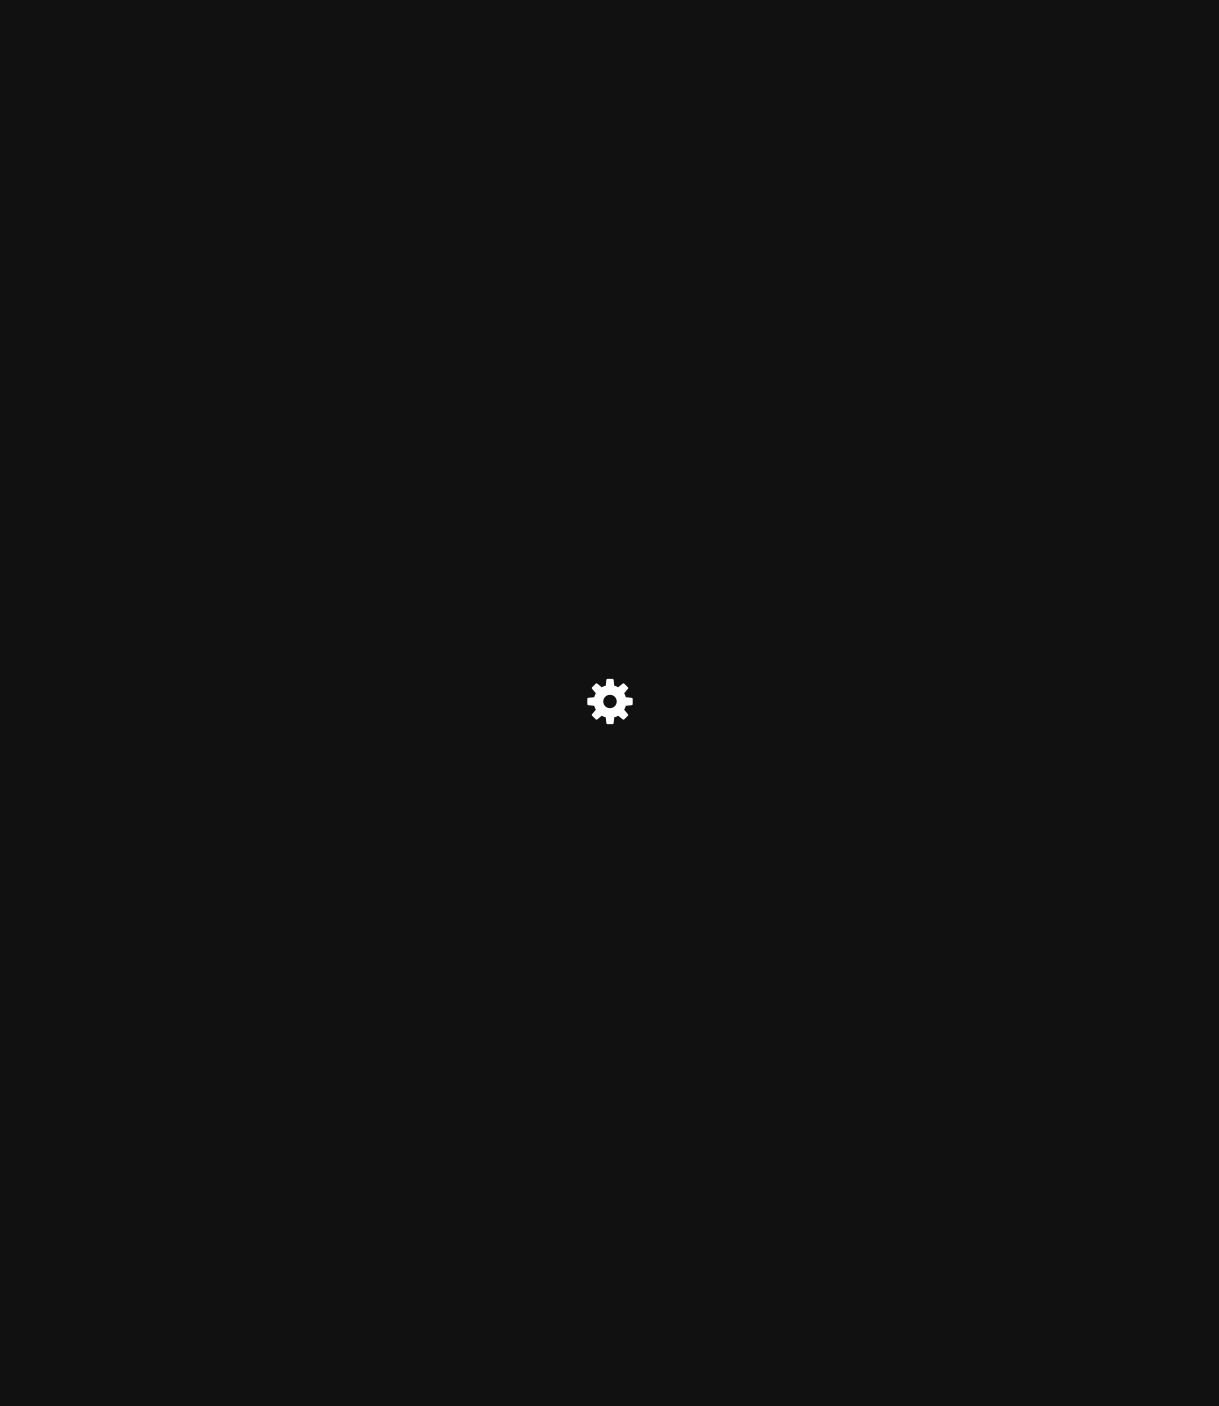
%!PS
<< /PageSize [1219 1406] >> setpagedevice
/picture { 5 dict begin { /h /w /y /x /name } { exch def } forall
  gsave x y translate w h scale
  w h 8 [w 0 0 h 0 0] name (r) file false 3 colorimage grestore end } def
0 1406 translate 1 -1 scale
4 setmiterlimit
0.067 setgray
0 0 1219 1406 rectfill
(img1.rgb) 587 678 46 47 picture
showpage
